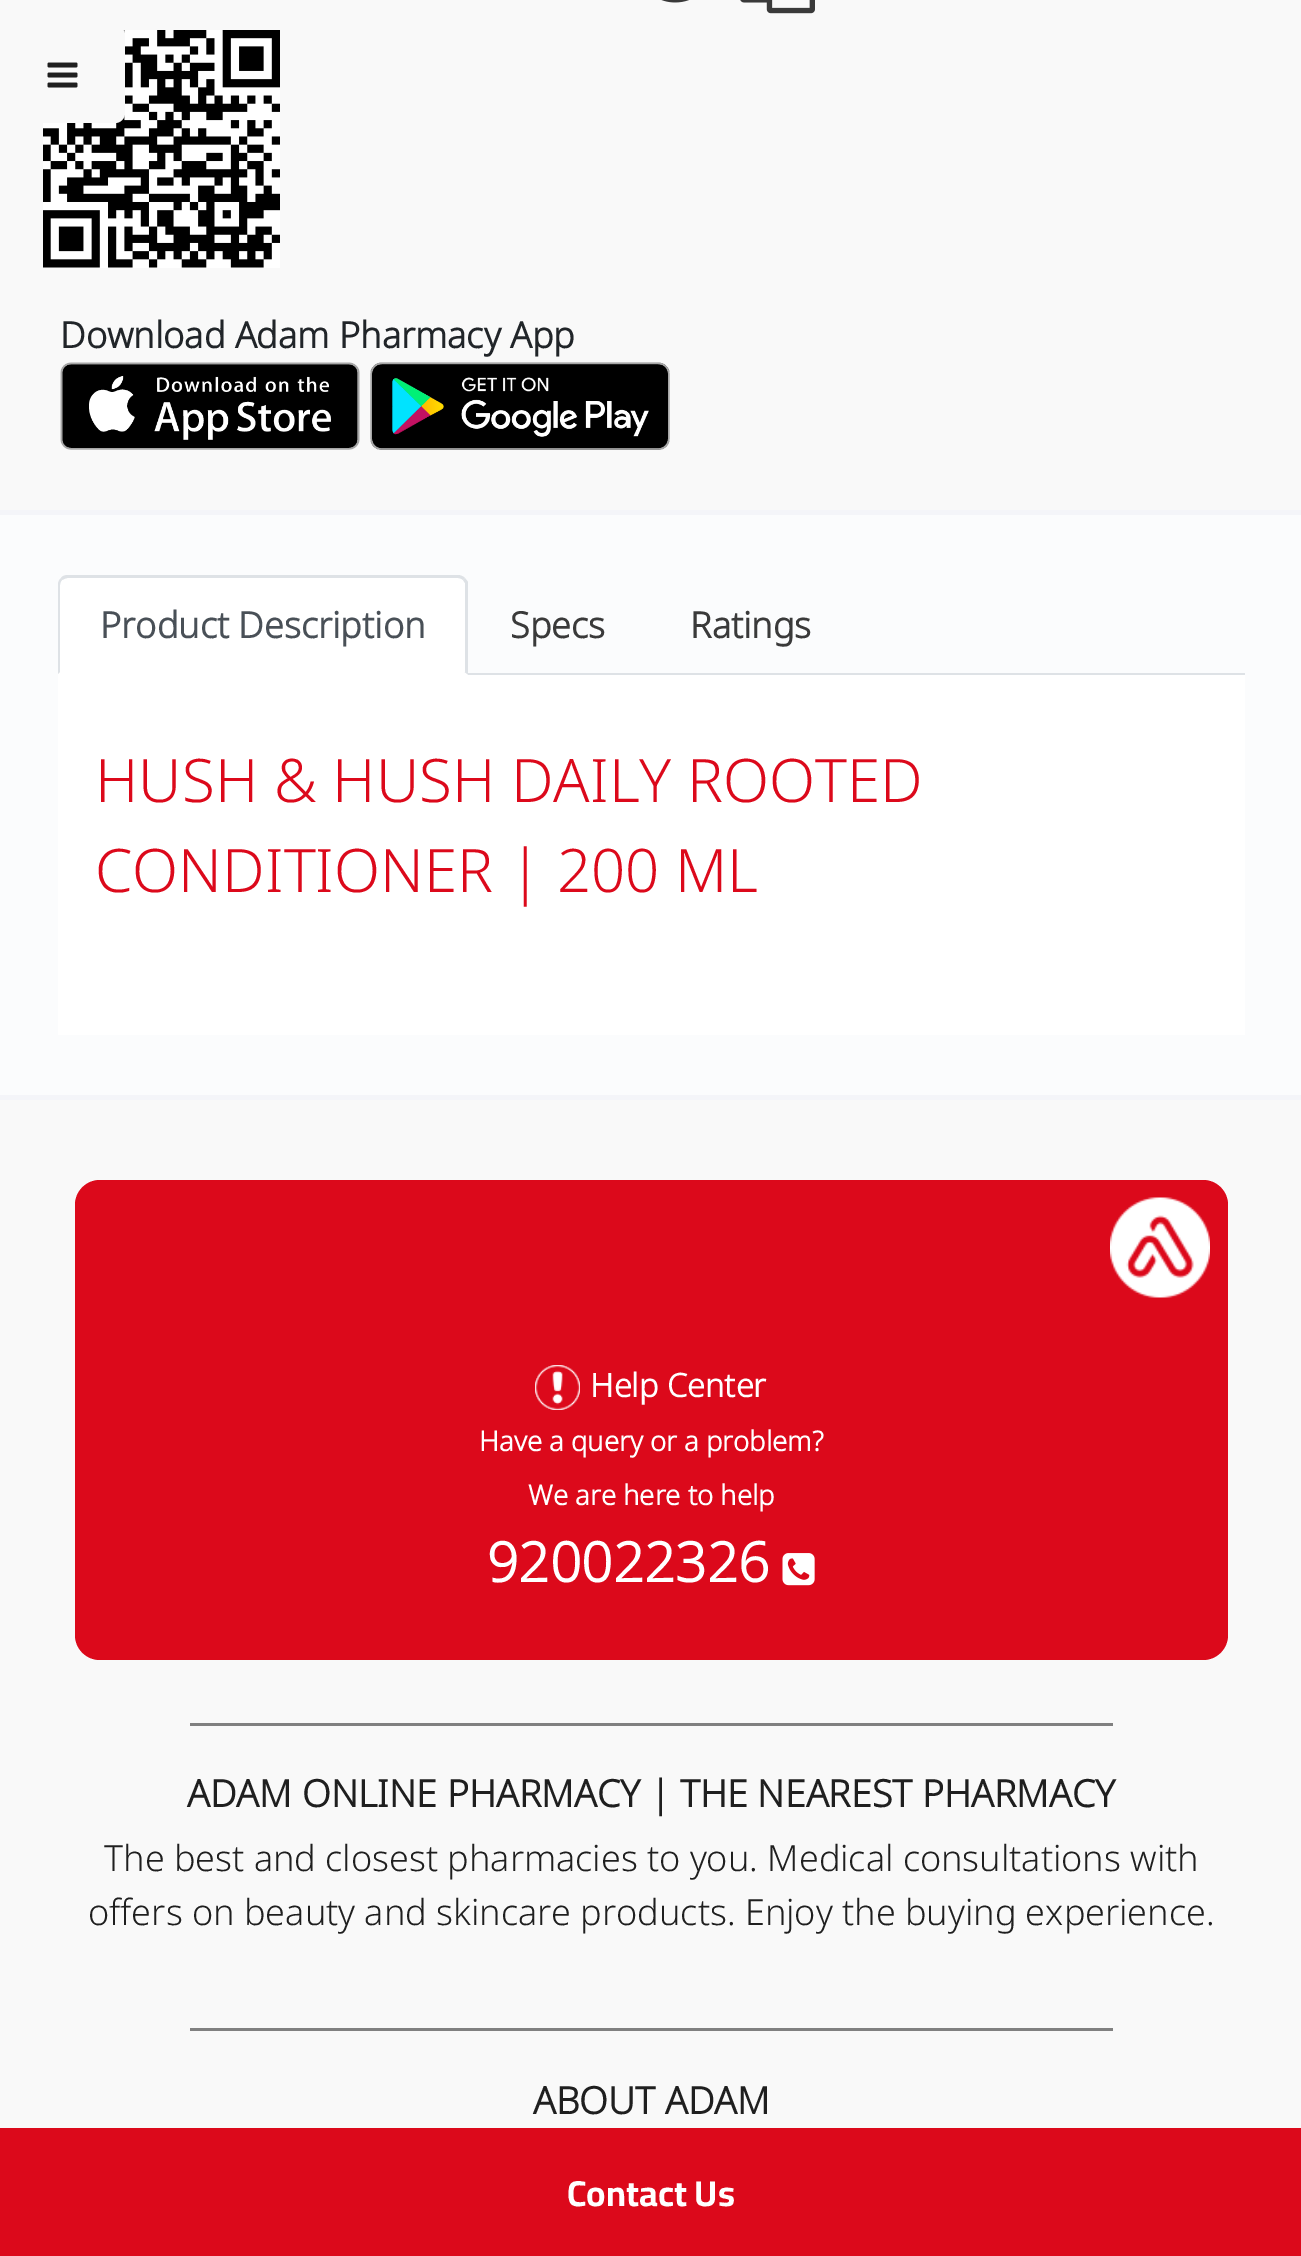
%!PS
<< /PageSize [1301 2256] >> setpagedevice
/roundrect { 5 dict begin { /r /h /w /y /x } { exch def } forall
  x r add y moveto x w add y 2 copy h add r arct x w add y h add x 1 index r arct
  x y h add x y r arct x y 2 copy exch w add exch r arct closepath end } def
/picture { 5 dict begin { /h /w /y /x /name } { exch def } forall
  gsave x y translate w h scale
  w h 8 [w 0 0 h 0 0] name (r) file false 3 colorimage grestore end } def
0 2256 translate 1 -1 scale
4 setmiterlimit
0.976 setgray
0 0 1301 2256 rectfill
(img4.rgb) 43 30 237 238 picture
newpath 0 25 moveto 115 25 lineto 120.5 25 125 29.5 125 35 curveto 125 113 lineto 125 118.5 120.5 123 115 123 curveto 0 123 lineto closepath fill
(img1.rgb) 47 62 31 26 picture
(img2.rgb) 661 0 28 3 picture
(img3.rgb) 740 0 75 14 picture
/NotoSans-Bold [36 0 0 -36 0 0] selectfont
0.129 0.145 0.161 setrgbcolor
60 348 moveto (Download Adam Pharmacy App) show
(img5.rgb) 60 362 300 88 picture
(img6.rgb) 370 362 300 88 picture
0.984 0.988 0.992 setrgbcolor
0 515 1301 580 rectfill
0.957 0.961 0.976 setrgbcolor
0 510 1301 5 rectfill
0 1095 1301 5 rectfill
0.871 0.886 0.902 setrgbcolor
468 673 777 2 rectfill
1 setgray
newpath 68 575 moveto 458 575 lineto 463.5 575 468 579.5 468 585 curveto 468 675 lineto 58 675 lineto 58 585 lineto 58 579.5 62.5 575 68 575 curveto closepath fill
0.871 0.886 0.902 setrgbcolor
newpath 68 575 moveto 65 575 62 576 61 578 curveto 62 580 lineto 64 579 66 578 68 578 curveto 458 578 lineto 460 578 462 579 463 580 curveto 465 578 lineto 463 576 460 575 458 575 curveto closepath fill
newpath 468 582 moveto 468 675 lineto 464 672 lineto 465 672 lineto 465 583 lineto 463 580 lineto 465 578 lineto closepath fill
1 setgray
newpath 468 675 moveto 464 672 lineto 60 672 lineto 58 675 lineto closepath fill
0.871 0.886 0.902 setrgbcolor
newpath 61 578 moveto 59 580 58 582 58 585 curveto 58 674 lineto 60 672 lineto 60 585 lineto 60 583 61 581 62 580 curveto closepath fill
0.286 0.314 0.341 setrgbcolor
100 638 moveto (Product Description) show
0.227 setgray
510 638 moveto (Specs) show
690 638 moveto (Ratings) show
1 setgray
58 675 1187 360 rectfill
/NotoSans-Light [60 0 0 -60 0 0] selectfont
0.863 0.035 0.106 setrgbcolor
95 802 moveto (HUSH & HUSH DAILY ROOTED) show
95 892 moveto (CONDITIONER | 200 ML) show
0.878 setgray
75 1200 1153 3 rectfill
0.863 0.035 0.106 setrgbcolor
75 1180 1153 480 25 roundrect fill
(img7.rgb) 1110 1197 100 101 picture
(img8.rgb) 535 1365 45 45 picture
/NotoSans-Bold [32.5 0 0 -32.5 0 0] selectfont
1 setgray
590 1397 moveto (Help Center) show
/NotoSans-Bold [27.5 0 0 -27.5 0 0] selectfont
479 1451 moveto (Have a query or a problem?) show
528 1505 moveto (We are here to help) show
/NotoSans-Bold [55 0 0 -55 0 0] selectfont
487 1582 moveto (920022326) show
(img9.rgb) 782 1553 33 33 picture
0.502 setgray
190 1723 923 3 rectfill
/NotoSans-Bold [37.5 0 0 -37.5 0 0] selectfont
0.122 setgray
187 1807 moveto (ADAM ONLINE PHARMACY | THE NEAREST PHARMACY) show
/NotoSans-Light [36 0 0 -36 0 0] selectfont
104 1871 moveto (The best and closest pharmacies to you. Medical consultations with) show
88 1925 moveto (offers on beauty and skincare products. Enjoy the buying experience.) show
0.502 setgray
190 2028 923 3 rectfill
/NotoSans-Bold [37.5 0 0 -37.5 0 0] selectfont
0.122 setgray
533 2114 moveto (ABOUT ADAM) show
0.863 0.035 0.106 setrgbcolor
0 2128 1301 128 rectfill
/Cairo-Bold [36 0 0 -36 0 0] selectfont
1 setgray
567 2206 moveto (Contact Us) show
showpage
